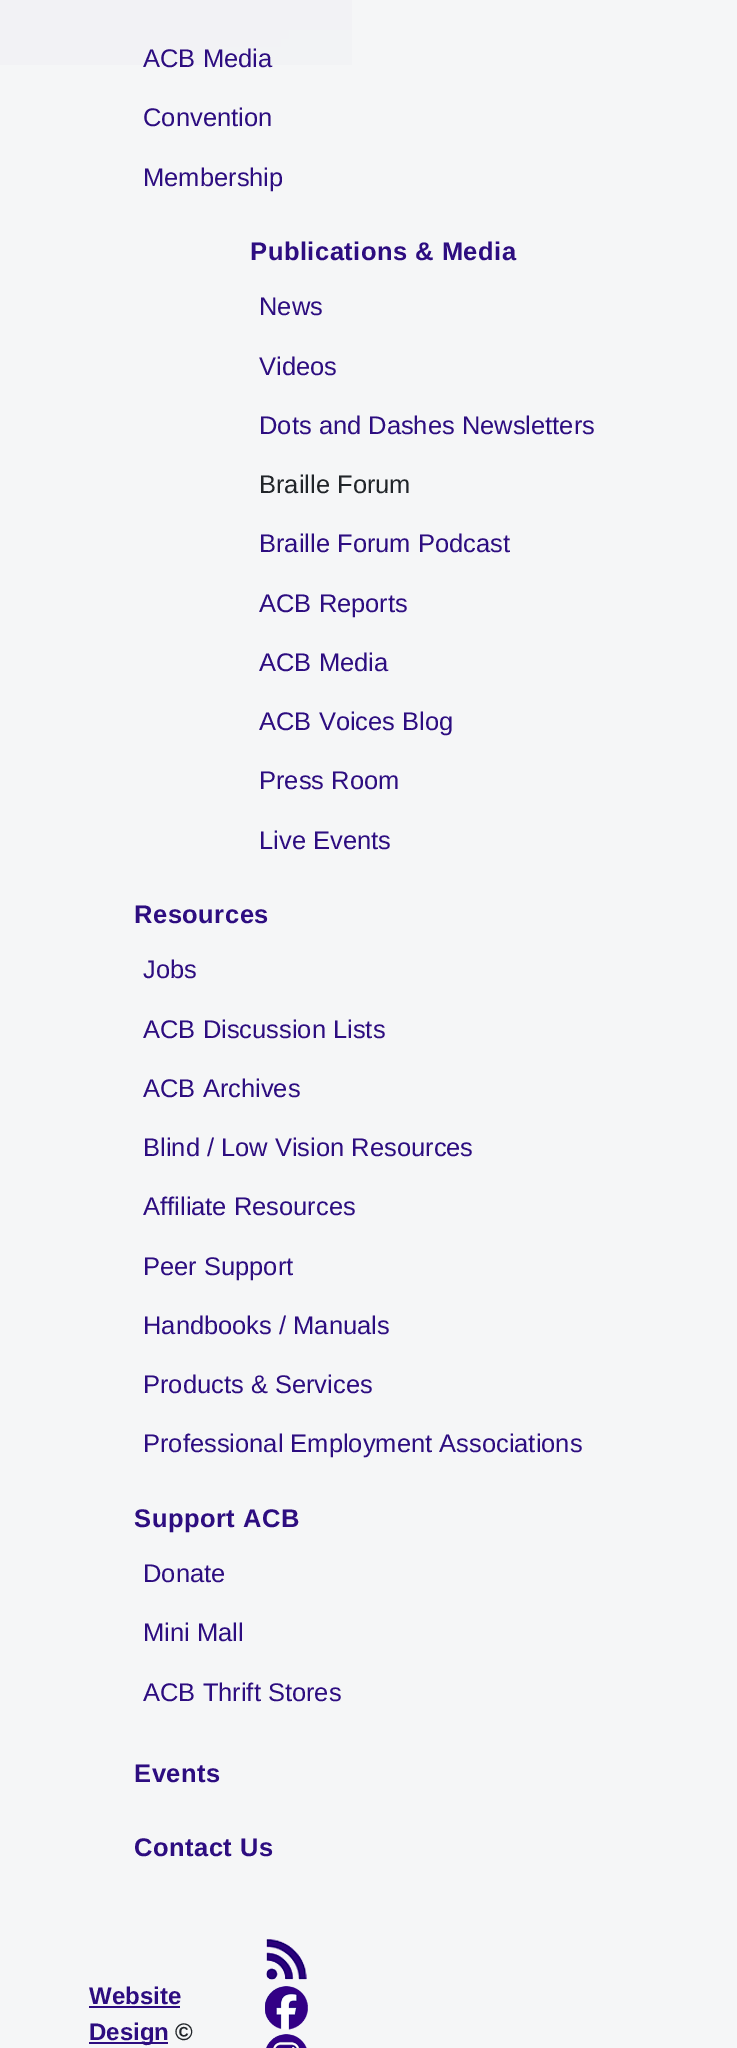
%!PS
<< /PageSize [737 2048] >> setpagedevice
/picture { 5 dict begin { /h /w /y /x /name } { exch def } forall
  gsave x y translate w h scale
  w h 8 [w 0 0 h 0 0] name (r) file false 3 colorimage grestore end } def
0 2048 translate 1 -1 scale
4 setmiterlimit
0.961 0.965 0.969 setrgbcolor
0 0 737 2048 rectfill
(img1.rgb) 0 0 352 65 picture
/LiberationSans-Regular [25.5 0 0 -25.5 0 0] selectfont
0.176 0.051 0.502 setrgbcolor
143 67 moveto (ACB Media) show
143 126 moveto (Convention) show
143 186 moveto (Membership) show
/LiberationSans-Bold [25.5 0 0 -25.5 0 0] selectfont
250 260 moveto 0.5 0 (Publications & Media) ashow
/LiberationSans-Regular [25.5 0 0 -25.5 0 0] selectfont
259 315 moveto (News) show
259 375 moveto (Videos) show
259 434 moveto (Dots and Dashes Newsletters) show
0.129 0.145 0.161 setrgbcolor
259 493 moveto (Braille Forum) show
0.176 0.051 0.502 setrgbcolor
259 552 moveto (Braille Forum Podcast) show
259 612 moveto (ACB Reports) show
259 671 moveto (ACB Media) show
259 730 moveto (ACB Voices Blog) show
259 789 moveto (Press Room) show
259 849 moveto (Live Events) show
/LiberationSans-Bold [25.5 0 0 -25.5 0 0] selectfont
134 923 moveto 0.5 0 (Resources) ashow
/LiberationSans-Regular [25.5 0 0 -25.5 0 0] selectfont
143 978 moveto (Jobs) show
143 1038 moveto (ACB Discussion Lists) show
143 1097 moveto (ACB Archives) show
143 1156 moveto (Blind / Low Vision Resources) show
143 1215 moveto (Affiliate Resources) show
143 1275 moveto (Peer Support) show
143 1334 moveto (Handbooks / Manuals) show
143 1393 moveto (Products & Services) show
143 1452 moveto (Professional Employment Associations) show
/LiberationSans-Bold [25.5 0 0 -25.5 0 0] selectfont
134 1527 moveto 0.5 0 (Support ACB) ashow
/LiberationSans-Regular [25.5 0 0 -25.5 0 0] selectfont
143 1582 moveto (Donate) show
143 1641 moveto (Mini Mall) show
143 1701 moveto (ACB Thrift Stores) show
/LiberationSans-Bold [25.5 0 0 -25.5 0 0] selectfont
134 1782 moveto 0.5 0 (Events) ashow
134 1856 moveto 0.5 0 (Contact Us) ashow
/LiberationSans-Bold [24 0 0 -24 0 0] selectfont
89 2004 moveto (Website) show
89 2006 91 2 rectfill
89 2042 79 2 rectfill
89 2040 moveto (Design) show
0.129 0.145 0.161 setrgbcolor
175 2040 moveto (©) show
(img2.rgb) 266 1939 41 41 picture
(img3.rgb) 265 1986 43 44 picture
(img4.rgb) 266 2034 41 14 picture
showpage
